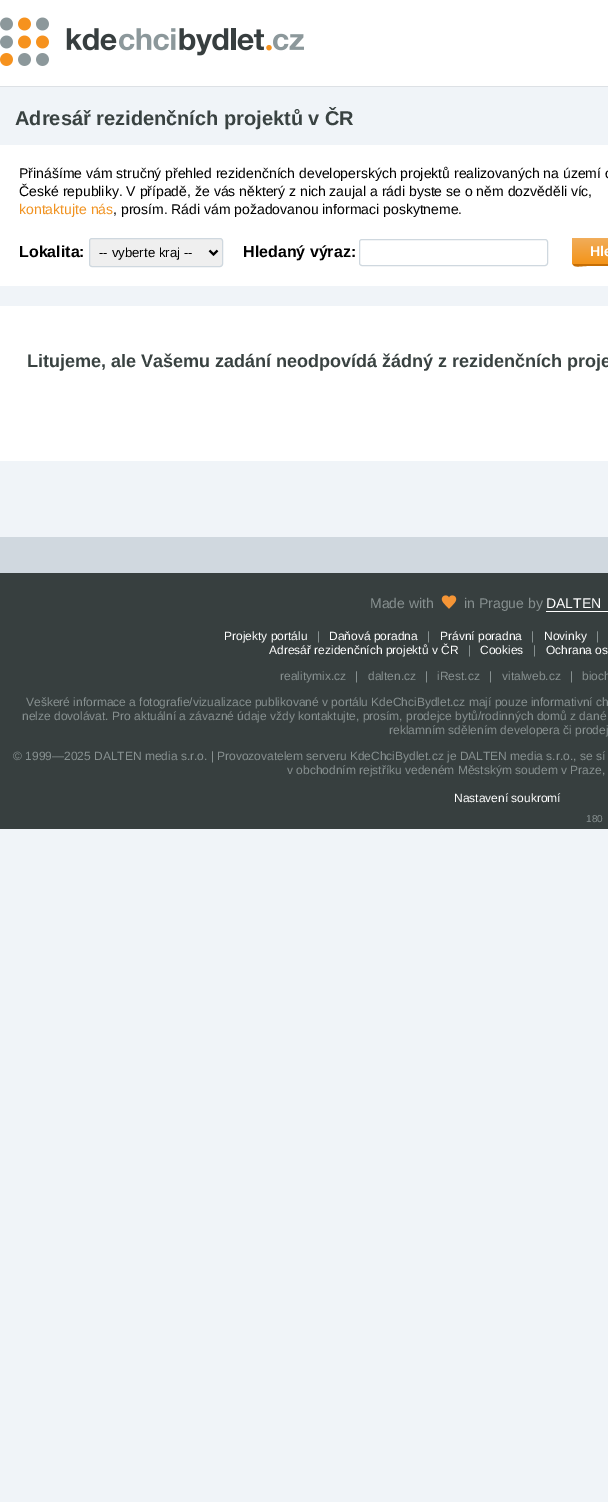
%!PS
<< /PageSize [608 1502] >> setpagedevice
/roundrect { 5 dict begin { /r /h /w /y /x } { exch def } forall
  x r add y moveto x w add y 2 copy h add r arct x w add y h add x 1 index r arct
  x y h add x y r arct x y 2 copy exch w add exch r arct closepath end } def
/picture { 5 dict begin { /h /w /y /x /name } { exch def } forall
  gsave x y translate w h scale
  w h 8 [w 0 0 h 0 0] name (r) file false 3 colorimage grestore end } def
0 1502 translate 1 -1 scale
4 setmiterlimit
0.941 0.957 0.973 setrgbcolor
0 0 608 1502 rectfill
1 setgray
0 0 608 86 rectfill
0.867 0.882 0.898 setrgbcolor
0 86 608 1 rectfill
(img1.rgb) 0 17 304 49 picture
/LiberationSans-Bold [20 0 0 -20 0 0] selectfont
0.224 0.259 0.255 setrgbcolor
15 125 moveto (Adresář rezidenčních projektů v ČR) show
1 setgray
0 145 608 141 rectfill
/LiberationSans-Regular [14 0 0 -14 0 0] selectfont
0 setgray
19 178 moveto (Přinášíme vám stručný přehled rezidenčních developerských projektů realizovaných na území c) show
19 196 moveto (České republiky. V případě, že vás některý z nich zaujal a rádi byste se o něm dozvěděli víc,) show
0.945 0.576 0.129 setrgbcolor
19 214 moveto (kontaktujte nás) show
0 setgray
113 214 moveto (, prosím. Rádi vám požadovanou informaci poskytneme.) show
/LiberationSans-Bold [16 0 0 -16 0 0] selectfont
19 257 moveto (Lokalita:) show
0.937 setgray
89.5 238.5 133 28 2.5 roundrect gsave fill grestore
0.812 0.847 0.875 setrgbcolor
stroke
0 setgray
2 setlinewidth
newpath 209.5 250.5 moveto 213.5 254.5 lineto 217.5 250.5 lineto stroke
/LiberationSans-Regular [13.25 0 0 -13.25 0 0] selectfont
99 257 moveto (-- vyberte kraj --) show
/LiberationSans-Bold [16 0 0 -16 0 0] selectfont
243 257 moveto (Hledaný výraz:) show
0.812 0.847 0.875 setrgbcolor
1 setlinewidth
359.5 239.5 188 26 2.5 roundrect stroke
0.776 0.431 0.016 setrgbcolor
newpath 572 261 moveto 572 269 579 266 587 266 curveto 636 266 lineto 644 266 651 269 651 261 curveto 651 263 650 264 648 264 curveto 575 264 lineto 573 264 572 263 572 261 curveto closepath fill
gsave 572 238 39 26 3 roundrect clip newpath
<< /ShadingType 2 /ColorSpace /DeviceRGB /Coords [572 264 572 238] /Extend [true true] /Function << /FunctionType 2 /Domain [0 1] /C0 [0.957 0.58 0.098] /C1 [0.945 0.678 0.353] /N 1 >> >> shfill grestore
/LiberationSans-Bold [14 0 0 -14 0 0] selectfont
1 setgray
590 256 moveto (Hle) show
0 306 608 155 rectfill
/LiberationSans-Bold [18 0 0 -18 0 0] selectfont
0.224 0.259 0.255 setrgbcolor
27 367 moveto (Litujeme, ale Vašemu zadání neodpovídá žádný z rezidenčních proje) show
0.816 0.847 0.875 setrgbcolor
0 537 608 36 rectfill
0.216 0.247 0.247 setrgbcolor
0 573 608 256 rectfill
/LiberationSans-Regular [14 0 0 -14 0 0] selectfont
0.529 0.565 0.565 setrgbcolor
370 608 moveto (Made with) show
(img2.rgb) 441 595 16 14 picture
464 608 moveto (in Prague by) show
1 setgray
546 608 moveto (DALTEN) show
546 611 62 1 rectfill
/LiberationSans-Regular [12 0 0 -12 0 0] selectfont
224 640 moveto (Projekty portálu) show
0.529 0.565 0.565 setrgbcolor
317 640 moveto (|) show
1 setgray
329 640 moveto (Daňová poradna) show
0.529 0.565 0.565 setrgbcolor
427 640 moveto (|) show
1 setgray
440 640 moveto (Právní poradna) show
0.529 0.565 0.565 setrgbcolor
531 640 moveto (|) show
1 setgray
544 640 moveto (Novinky) show
0.529 0.565 0.565 setrgbcolor
596 640 moveto (|) show
1 setgray
269 654 moveto (Adresář rezidenčních projektů v ČR) show
0.529 0.565 0.565 setrgbcolor
468 654 moveto (|) show
1 setgray
480 654 moveto (Cookies) show
0.529 0.565 0.565 setrgbcolor
533 654 moveto (|) show
1 setgray
546 654 moveto (Ochrana os) show
0.529 0.565 0.565 setrgbcolor
280 680 moveto (realitymix.cz) show
355 680 moveto (|) show
368 680 moveto (dalten.cz) show
425 680 moveto (|) show
437 680 moveto (iRest.cz) show
489 680 moveto (|) show
502 680 moveto (vitalweb.cz) show
570 680 moveto (|) show
582 680 moveto (bioch) show
26 706 moveto (Veškeré informace a fotografie/vizualizace publikované v portálu KdeChciBydlet.cz mají pouze informativní ch) show
22 720 moveto (nelze dovolávat. Pro aktuální a závazné údaje vždy kontaktujte, prosím, prodejce bytů/rodinných domů z dané) show
389 734 moveto (reklamním sdělením developera či prodej) show
13 760 moveto (© 1999—2025 DALTEN media s.r.o. | Provozovatelem serveru KdeChciBydlet.cz je DALTEN media s.r.o., se sí) show
287 774 moveto (v obchodním rejstříku vedeném Městským soudem v Praze,) show
1 setgray
454 802 moveto (Nastavení soukromí) show
/LiberationSans-Regular [10 0 0 -10 0 0] selectfont
0.529 0.565 0.565 setrgbcolor
586 822 moveto (180) show
showpage
